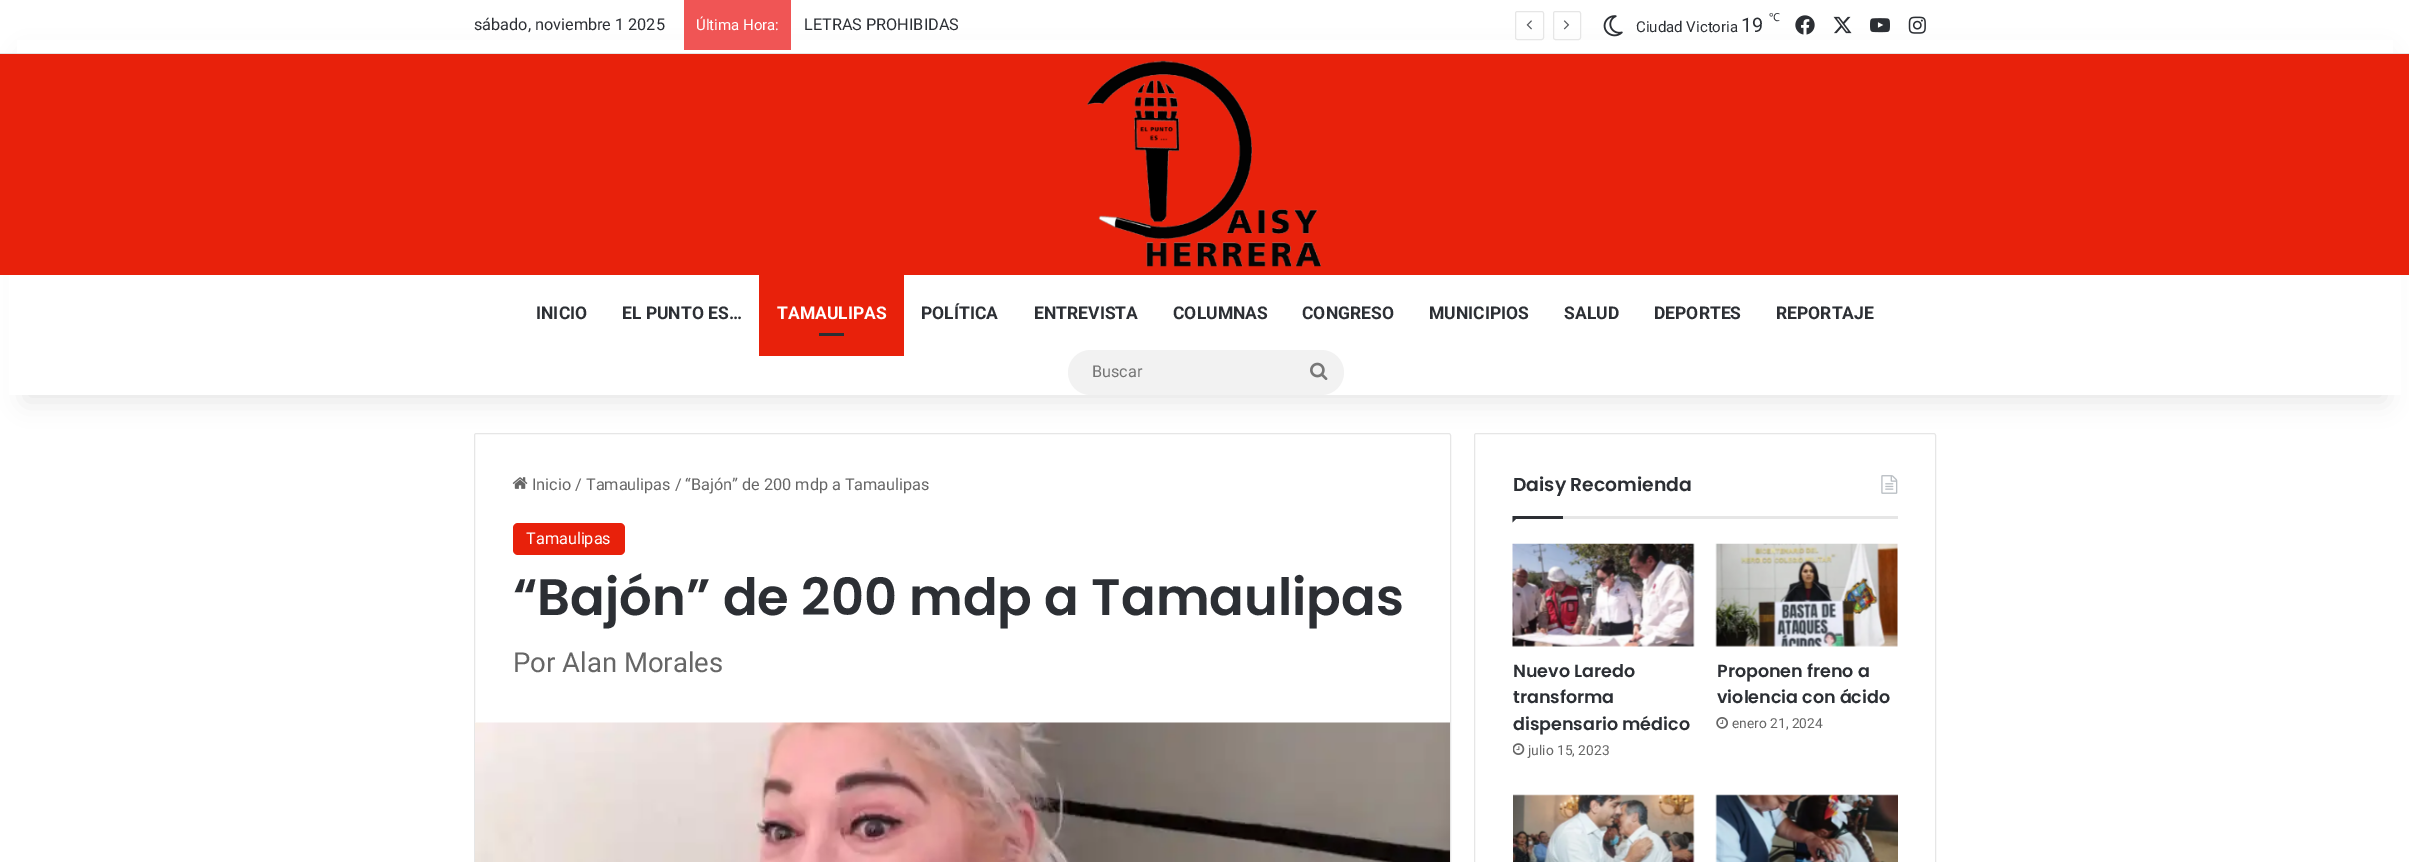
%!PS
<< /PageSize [2409 862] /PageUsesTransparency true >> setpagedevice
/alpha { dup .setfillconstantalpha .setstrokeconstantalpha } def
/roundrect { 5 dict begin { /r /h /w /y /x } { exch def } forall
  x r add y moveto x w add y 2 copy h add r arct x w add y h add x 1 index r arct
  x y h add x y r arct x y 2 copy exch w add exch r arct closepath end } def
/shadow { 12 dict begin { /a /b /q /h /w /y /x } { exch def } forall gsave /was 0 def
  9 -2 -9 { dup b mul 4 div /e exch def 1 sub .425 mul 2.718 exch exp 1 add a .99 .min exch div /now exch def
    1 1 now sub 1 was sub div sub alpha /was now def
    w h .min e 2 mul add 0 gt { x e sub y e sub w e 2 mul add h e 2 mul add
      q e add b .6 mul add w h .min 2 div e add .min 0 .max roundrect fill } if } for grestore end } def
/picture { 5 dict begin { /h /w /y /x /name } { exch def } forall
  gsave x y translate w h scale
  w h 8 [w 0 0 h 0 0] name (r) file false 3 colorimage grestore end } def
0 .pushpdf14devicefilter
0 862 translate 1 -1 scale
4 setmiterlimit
1 setgray
0 0 2409 862 rectfill
0.902 setgray
474.5 433.5 976 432 2 roundrect stroke
1474.5 433.5 461 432 2 roundrect stroke
0 setgray
25 56 2360 345 0 12.5 0.1 shadow
0.91 0.129 0.043 setrgbcolor
0 54 2409 221 rectfill
1 setgray
17 40 2376 13 rectfill
0.902 setgray
0 53 2409 1 rectfill
/Roboto-Regular [16.25 0 0 -16.25 0 0] selectfont
0.173 0.184 0.204 setrgbcolor
474 30 moveto (sábado, noviembre 1 2025) show
0.941 0.333 0.333 setrgbcolor
684 0 107 50 rectfill
/Roboto-Regular [15 0 0 -15 0 0] selectfont
1 setgray
696 30 moveto (Última Hora:) show
/Roboto-Regular [16.25 0 0 -16.25 0 0] selectfont
0.173 0.184 0.204 setrgbcolor
804 30 moveto (LETRAS PROHIBIDAS) show
0.902 setgray
1515.5 11.5 28 28 2 roundrect stroke
(img1.rgb) 1526 20 6 10 picture
1553.5 11.5 27 28 2 roundrect stroke
(img2.rgb) 1563 20 7 10 picture
(img3.rgb) 1603 15 20 22 picture
/Roboto-Regular [15 0 0 -15 0 0] selectfont
0.173 0.184 0.204 setrgbcolor
1636 32 moveto (Ciudad Victoria) show
/Roboto-Regular [20 0 0 -20 0 0] selectfont
1741 32 moveto (19) show
/NotoSans-Regular [11 0 0 -11 0 0] selectfont
1769 21 moveto (℃) show
(img4.rgb) 1795 15 20 20 picture
(img5.rgb) 1833 16 19 18 picture
(img6.rgb) 1870 18 20 15 picture
(img7.rgb) 1908 16 18 18 picture
(img8.rgb) 1087 60 234 207 picture
1 setgray
9 275 2392 120 rectfill
/Roboto-Bold [17.5 0 0 -17.5 0 0] selectfont
0.173 0.184 0.204 setrgbcolor
536 319 moveto (INICIO) show
622 319 moveto (EL PUNTO ES…) show
0.91 0.129 0.043 setrgbcolor
759 275 145 81 rectfill
1 setgray
777 319 moveto (TAMAULIPAS) show
0.173 0.184 0.204 setrgbcolor
819 333 25 3 rectfill
921 319 moveto (POLÍTICA) show
1034 319 moveto (ENTREVISTA) show
1173 319 moveto (COLUMNAS) show
1302 319 moveto (CONGRESO) show
1429 319 moveto (MUNICIPIOS) show
1564 319 moveto (SALUD) show
1654 319 moveto (DEPORTES) show
1776 319 moveto (REPORTAJE) show
0.949 setgray
1068 350 276 45 22.5 roundrect fill
/Roboto-Regular [16.25 0 0 -16.25 0 0] selectfont
0.459 setgray
1092 377 moveto (Buscar) show
(img9.rgb) 1310 362 18 18 picture
(img10.rgb) 512 477 16 12 picture
0.4 setgray
532 490 moveto (Inicio / Tamaulipas / “Bajón” de 200 mdp a Tamaulipas) show
0.91 0.129 0.043 setrgbcolor
513 523 112 32 5 roundrect fill
1 setgray
526 544 moveto (Tamaulipas) show
/Poppins-SemiBold [51.25 0 0 -51.25 0 0] selectfont
0.173 0.184 0.204 setrgbcolor
513 615 moveto (“Bajón” de 200 mdp a Tamaulipas) show
/Roboto-Regular [27.5 0 0 -27.5 0 0] selectfont
0.4 setgray
513 672 moveto (Por Alan Morales) show
(img11.rgb) 475 722 975 140 picture
0.902 setgray
1563 516 335 3 rectfill
/Poppins-SemiBold [18.75 0 0 -18.75 0 0] selectfont
0.173 0.184 0.204 setrgbcolor
1513 491 moveto (Daisy Recomienda) show
(img12.rgb) 1881 475 17 19 picture
newpath 1512.5 516 moveto 1519 516 lineto 1512.5 522.5 lineto closepath fill
1513 516 50 3 rectfill
(img13.rgb) 1512 543 183 104 picture
/Poppins-SemiBold [17.5 0 0 -17.5 0 0] selectfont
1513 677 moveto (Nuevo Laredo) show
1513 703 moveto (transforma) show
1513 730 moveto (dispensario médico) show
(img14.rgb) 1513 743 12 12 picture
/Roboto-Regular [13.75 0 0 -13.75 0 0] selectfont
0.4 setgray
1528 755 moveto (julio 15, 2023) show
(img15.rgb) 1715 543 183 104 picture
/Poppins-SemiBold [17.5 0 0 -17.5 0 0] selectfont
0.173 0.184 0.204 setrgbcolor
1717 677 moveto (Proponen freno a) show
1717 703 moveto (violencia con ácido) show
(img16.rgb) 1716 717 12 12 picture
/Roboto-Regular [13.75 0 0 -13.75 0 0] selectfont
0.4 setgray
1732 728 moveto (enero 21, 2024) show
(img17.rgb) 1513 794 182 68 picture
(img18.rgb) 1715 794 183 68 picture
.poppdf14devicefilter showpage
